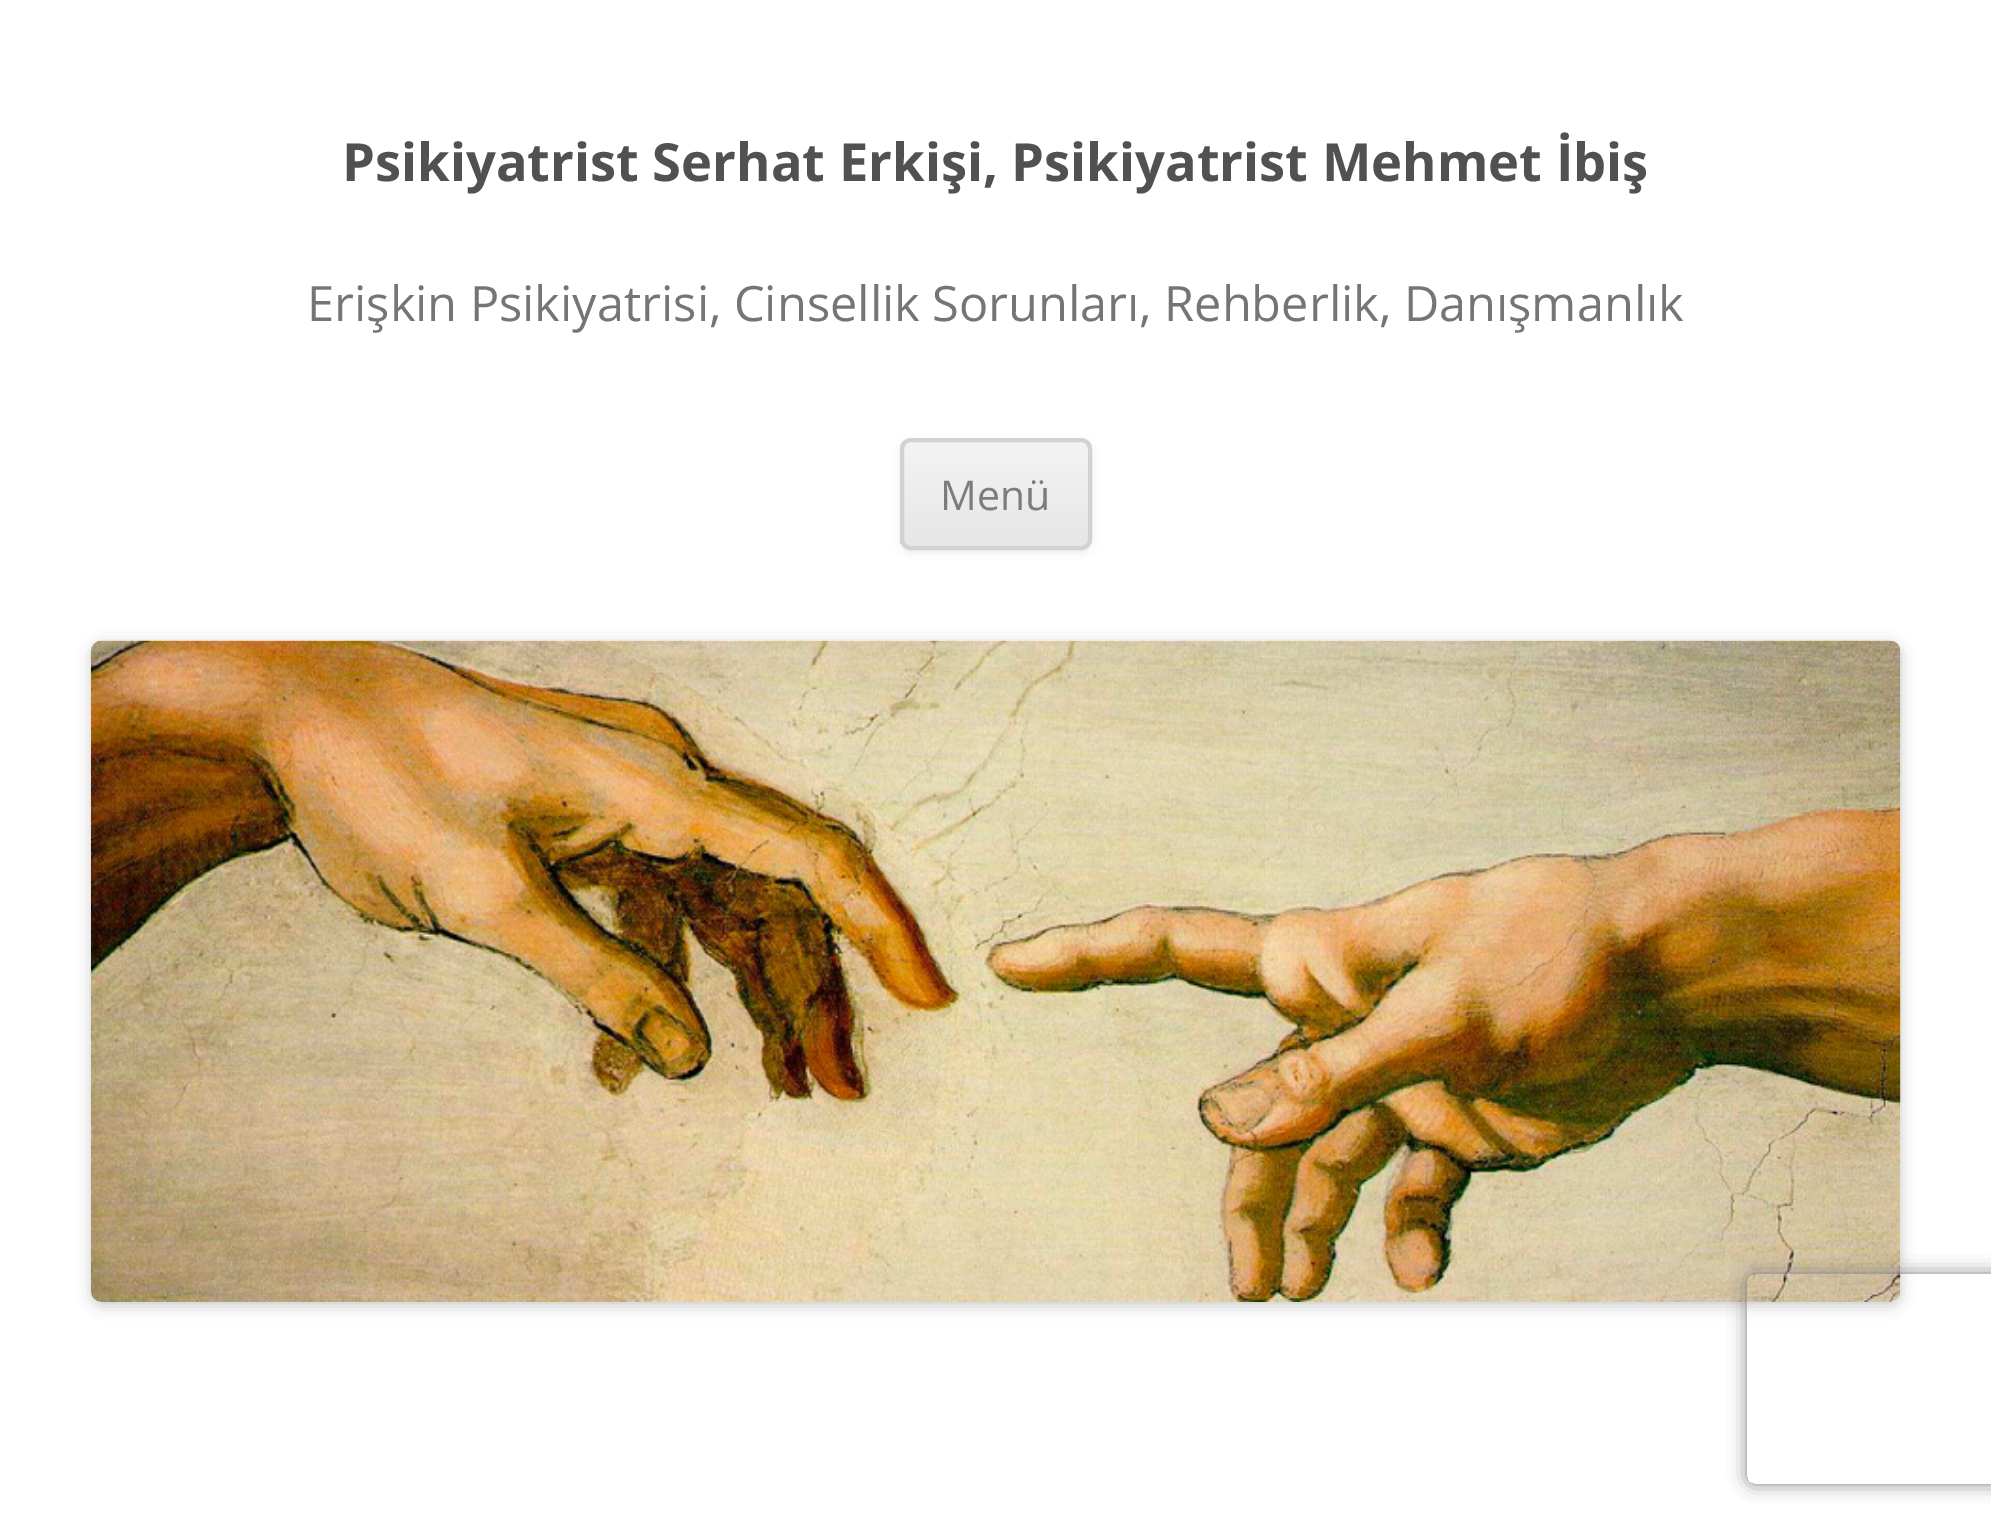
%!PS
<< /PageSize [1991 1531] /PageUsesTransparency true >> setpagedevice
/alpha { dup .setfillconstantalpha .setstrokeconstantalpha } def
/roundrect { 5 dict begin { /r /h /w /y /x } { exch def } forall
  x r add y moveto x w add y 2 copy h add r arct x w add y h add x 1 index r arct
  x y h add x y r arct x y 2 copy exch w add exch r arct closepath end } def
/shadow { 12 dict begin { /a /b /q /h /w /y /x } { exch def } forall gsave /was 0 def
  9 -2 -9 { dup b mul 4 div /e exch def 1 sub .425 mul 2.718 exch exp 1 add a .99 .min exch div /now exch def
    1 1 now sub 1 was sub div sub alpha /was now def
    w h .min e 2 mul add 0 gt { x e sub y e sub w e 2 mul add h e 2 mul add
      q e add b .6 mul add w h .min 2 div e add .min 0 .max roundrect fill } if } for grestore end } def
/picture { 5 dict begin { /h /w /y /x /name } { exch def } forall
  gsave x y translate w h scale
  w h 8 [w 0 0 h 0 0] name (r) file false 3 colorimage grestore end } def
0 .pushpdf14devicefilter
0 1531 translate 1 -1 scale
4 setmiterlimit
1 setgray
0 0 1991 1531 rectfill
/OpenSans-Bold [52.5 0 0 -52.5 0 0] selectfont
0.318 setgray
342 181 moveto (Psikiyatrist Serhat Erkişi, Psikiyatrist Mehmet İbiş) show
/OpenSans-Regular [48.75 0 0 -48.75 0 0] selectfont
0.459 setgray
307 321 moveto -0.5 0 32 (Erişkin Psikiyatrisi, Cinsellik Sorunları, Rehberlik, Danışmanlık) widthshow
0.251 setgray
900 441 192 112 11 3.5 0.1 shadow
gsave
900 438 192 112 11 roundrect clip newpath
gsave newpath 900 441 moveto 1092 441 lineto 1092 546 lineto 900 546 lineto closepath clip newpath
<< /ShadingType 2 /ColorSpace /DeviceRGB /Coords [996 441 996 546] /Extend [true true] /Function << /FunctionType 2 /Domain [0 1] /C0 [0.957 0.957 0.957] /C1 [0.902 0.902 0.902] /N 1 >> >> shfill grestore
grestore
0.824 setgray
4 setlinewidth
902 440 188 108 9 roundrect stroke
/OpenSans-Regular [41 0 0 -41 0 0] selectfont
0.486 setgray
940 510 moveto (Menü) show
0 setgray
91 644 1810 662 11 7 0.2 shadow
(img1.rgb) 91 640 1810 662 picture
gsave
newpath 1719 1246 moveto 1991 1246 lineto 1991 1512 lineto 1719 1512 lineto closepath 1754 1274 moveto 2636 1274 lineto 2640 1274 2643 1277 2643 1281 curveto 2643 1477 lineto 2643 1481 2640 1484 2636 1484 curveto 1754 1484 lineto 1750 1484 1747 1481 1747 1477 curveto 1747 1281 lineto 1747 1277 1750 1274 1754 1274 curveto closepath eoclip newpath
0.502 setgray
1747 1274 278 210 7 9 1 shadow
grestore
.poppdf14devicefilter showpage
